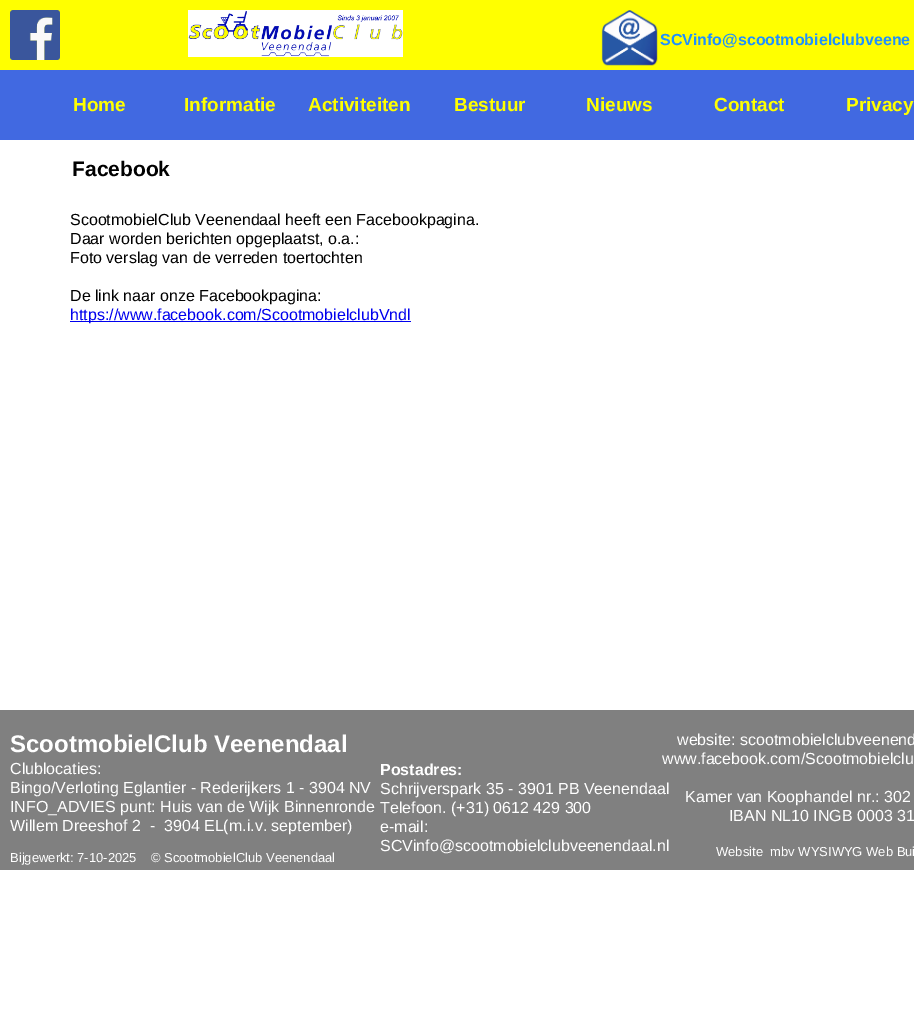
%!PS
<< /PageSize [914 1020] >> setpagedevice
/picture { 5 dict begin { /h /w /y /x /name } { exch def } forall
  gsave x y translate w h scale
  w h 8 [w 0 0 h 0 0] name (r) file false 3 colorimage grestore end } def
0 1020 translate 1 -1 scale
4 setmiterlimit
1 setgray
0 0 914 1020 rectfill
1 1 0 setrgbcolor
0 0 914 70 rectfill
(img1.rgb) 10 10 50 50 picture
(img2.rgb) 188 10 215 47 picture
(img3.rgb) 601 10 59 58 picture
/LiberationSans-Bold [16 0 0 -16 0 0] selectfont
0.118 0.565 1 setrgbcolor
660 45 moveto (SCVinfo@scootmobielclubveene) show
0.255 0.412 0.882 setrgbcolor
0 70 914 70 rectfill
/LiberationSans-Bold [19 0 0 -19 0 0] selectfont
1 1 0 setrgbcolor
73 111 moveto (Home) show
184 111 moveto (Informatie) show
308 111 moveto (Activiteiten) show
454 111 moveto (Bestuur) show
586 111 moveto (Nieuws) show
714 111 moveto (Contact) show
846 111 moveto (Privacy) show
/LiberationSans-Bold [21 0 0 -21 0 0] selectfont
0 setgray
72 176 moveto (Facebook) show
/LiberationSans-Regular [16 0 0 -16 0 0] selectfont
70 225 moveto (ScootmobielClub Veenendaal heeft een Facebookpagina.) show
70 244 moveto (Daar worden berichten opgeplaatst, o.a.:) show
70 263 moveto (Foto verslag van de verreden toertochten) show
70 301 moveto (De link naar onze Facebookpagina:) show
0 0 0.933 setrgbcolor
70 321 341 1 rectfill
70 320 moveto (https://www.facebook.com/ScootmobielclubVndl) show
0.502 setgray
0 710 914 160 rectfill
/LiberationSans-Bold [24 0 0 -24 0 0] selectfont
1 setgray
10 752 moveto (ScootmobielClub Veenendaal) show
/LiberationSans-Regular [16 0 0 -16 0 0] selectfont
10 774 moveto (Clublocaties:) show
10 793 moveto (Bingo/Verloting Eglantier - Rederijkers 1 - 3904 NV) show
10 812 moveto (INFO_ADVIES punt: Huis van de Wijk Binnenronde) show
10 831 moveto (Willem Dreeshof 2  -  3904 EL\(m.i.v. september\)) show
/LiberationSans-Regular [13 0 0 -13 0 0] selectfont
10 862 moveto (Bijgewerkt: 7-10-2025    © ScootmobielClub Veenendaal) show
/LiberationSans-Bold [16 0 0 -16 0 0] selectfont
380 775 moveto (Postadres:) show
/LiberationSans-Regular [16 0 0 -16 0 0] selectfont
380 794 moveto (Schrijverspark 35 - 3901 PB Veenendaal) show
380 813 moveto (Telefoon. \(+31\) 0612 429 300) show
380 832 moveto (e-mail:) show
380 851 moveto (SCVinfo@scootmobielclubveenendaal.nl) show
677 745 moveto (website: scootmobielclubveenend) show
662 764 moveto (www.facebook.com/Scootmobielclu) show
685 802 moveto (Kamer van Koophandel nr.: 302) show
729 821 moveto (IBAN NL10 INGB 0003 31) show
/LiberationSans-Regular [13 0 0 -13 0 0] selectfont
716 856 moveto (Website  mbv WYSIWYG Web Bui) show
showpage
